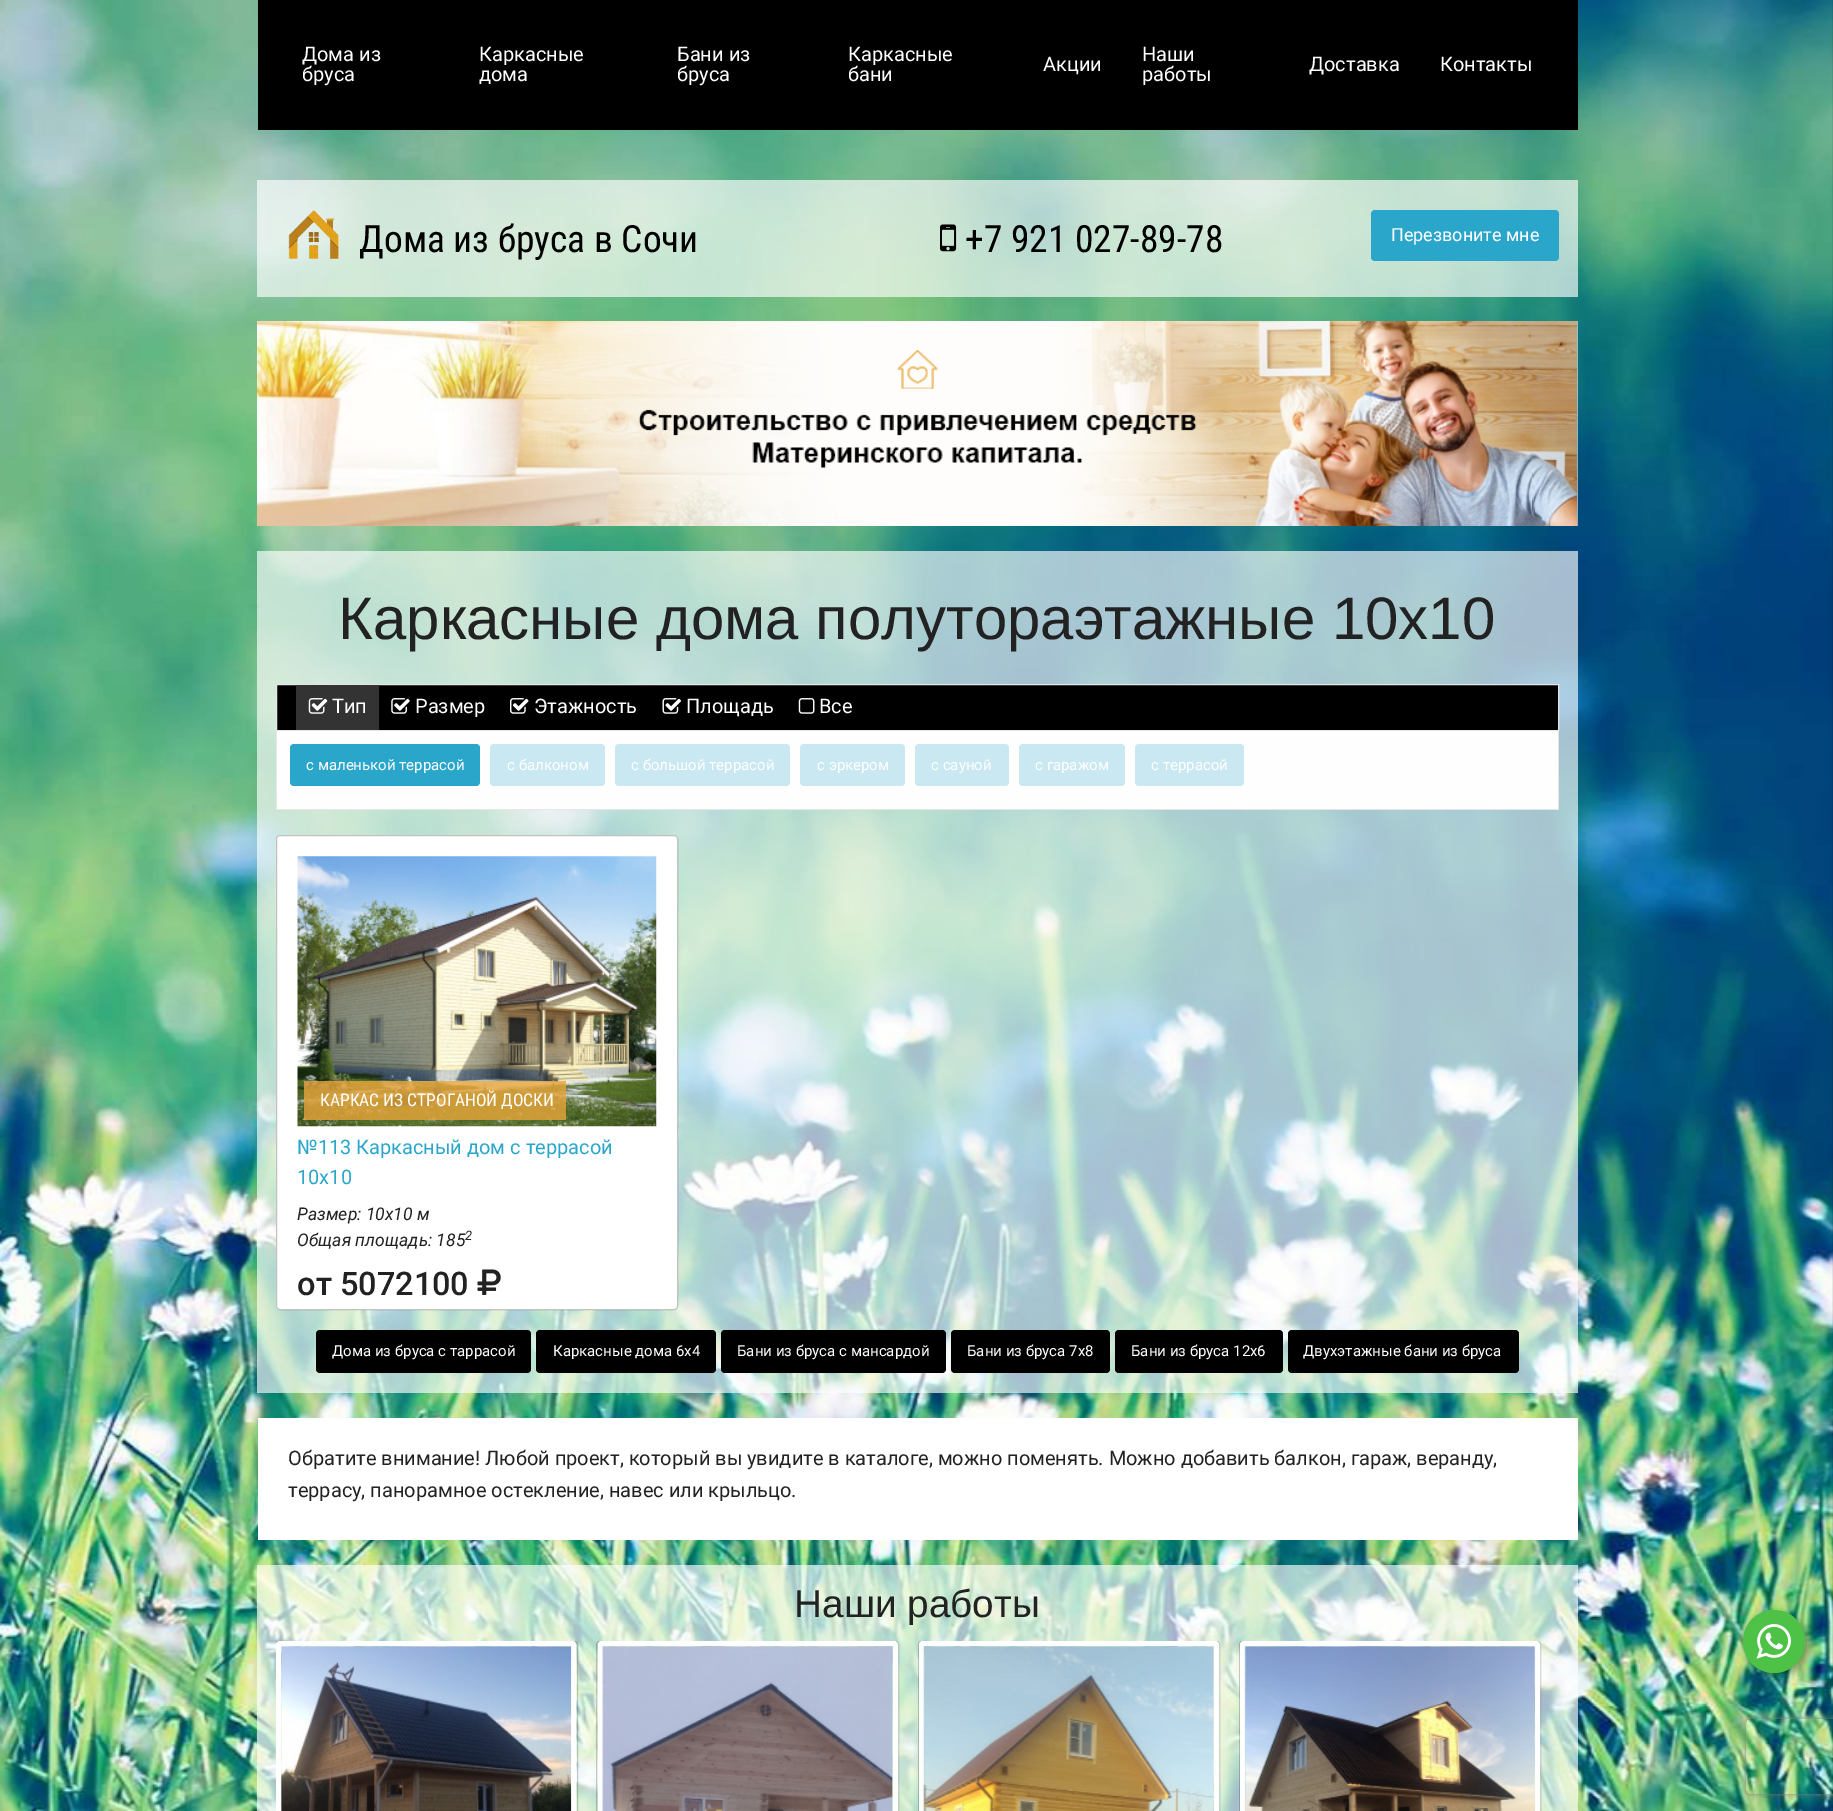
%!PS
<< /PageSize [1833 1811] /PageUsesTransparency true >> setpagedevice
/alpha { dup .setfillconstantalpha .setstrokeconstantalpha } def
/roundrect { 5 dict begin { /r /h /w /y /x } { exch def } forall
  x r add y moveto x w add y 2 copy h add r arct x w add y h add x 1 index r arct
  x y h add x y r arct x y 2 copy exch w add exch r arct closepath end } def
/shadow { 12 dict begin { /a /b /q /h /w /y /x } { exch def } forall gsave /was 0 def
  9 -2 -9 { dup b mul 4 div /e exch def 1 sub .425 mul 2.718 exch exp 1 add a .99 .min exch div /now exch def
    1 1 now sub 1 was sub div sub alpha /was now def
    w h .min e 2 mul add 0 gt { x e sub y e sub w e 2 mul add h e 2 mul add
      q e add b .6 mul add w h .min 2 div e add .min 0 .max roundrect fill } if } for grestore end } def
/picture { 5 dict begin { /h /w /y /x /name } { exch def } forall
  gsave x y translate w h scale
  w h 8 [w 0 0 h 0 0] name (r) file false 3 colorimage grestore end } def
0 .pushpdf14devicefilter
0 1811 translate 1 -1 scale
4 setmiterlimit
1 setgray
0 0 1833 1811 rectfill
(img1.rgb) 0 0 1833 1811 picture
0 setgray
258 0 1320 130 rectfill
/Roboto-Regular [20 0 0 -20 0 0] selectfont
1 setgray
302 61 moveto (Дома из) show
302 81 moveto (бруса) show
479 61 moveto (Каркасные) show
479 81 moveto (дома) show
677 61 moveto (Бани из) show
677 81 moveto (бруса) show
848 61 moveto (Каркасные) show
848 81 moveto (бани) show
1043 71 moveto (Акции) show
1142 61 moveto (Наши) show
1142 81 moveto (работы) show
1309 71 moveto (Доставка) show
1440 71 moveto (Контакты) show
0.65 alpha
257 180 1321 117 rectfill
1 alpha
(img2.rgb) 288 210 51 49 picture
/RobotoCondensed-Regular [37.5 0 0 -37.5 0 0] selectfont
0 setgray
359 252 moveto (Дома из бруса в Сочи) show
(img3.rgb) 940 224 17 28 picture
965 252 moveto (+7 921 027-89-78) show
0.169 0.651 0.796 setrgbcolor
1371 210 188 51 4 roundrect fill
/Roboto-Regular [18 0 0 -18 0 0] selectfont
1 setgray
1391 241 moveto (Перезвоните мне) show
(img4.rgb) 257 321 1320 205 picture
0.56 alpha
1577 321 1 205 rectfill
0.65 alpha
257 551 1321 842 rectfill
/LiberationSans-Regular [60 0 0 -60 0 0] selectfont
1 alpha
0.133 setgray
338 639 moveto (Каркасные дома полутораэтажные 10х10) show
0 setgray
newpath 276.5 684.5 moveto 1558.5 684.5 lineto 1558.5 730.5 lineto 276.5 730.5 lineto closepath gsave fill grestore
0.902 setgray
stroke
0.2 setgray
296 685 83 45 rectfill
(img5.rgb) 308 698 20 16 picture
/Roboto-Regular [20 0 0 -20 0 0] selectfont
1 setgray
332 713 moveto (Тип) show
(img6.rgb) 391 698 19 16 picture
415 713 moveto (Размер) show
(img7.rgb) 510 698 19 16 picture
534 713 moveto (Этажность) show
(img8.rgb) 662 698 19 16 picture
686 713 moveto (Площадь) show
(img9.rgb) 798 698 17 16 picture
819 713 moveto (Все) show
0.996 setgray
277 731 1281 78 rectfill
0.902 setgray
1558 731 1 79 rectfill
276 809 1283 1 rectfill
276 731 1 79 rectfill
0.169 0.651 0.796 setrgbcolor
290 744 190 42 4 roundrect fill
/Roboto-Regular [15 0 0 -15 0 0] selectfont
1 setgray
306 770 moveto (с маленькой террасой) show
0.788 0.91 0.945 setrgbcolor
490 744 115 42 4 roundrect fill
1 setgray
507 770 moveto (с балконом) show
0.788 0.91 0.945 setrgbcolor
615 744 175 42 4 roundrect fill
1 setgray
631 770 moveto (с большой террасой) show
0.788 0.91 0.945 setrgbcolor
800 744 105 42 4 roundrect fill
1 setgray
817 770 moveto (с эркером) show
0.788 0.91 0.945 setrgbcolor
915 744 94 42 4 roundrect fill
1 setgray
931 770 moveto (с сауной) show
0.788 0.91 0.945 setrgbcolor
1019 744 106 42 4 roundrect fill
1 setgray
1035 770 moveto (с гаражом) show
0.788 0.91 0.945 setrgbcolor
1135 744 109 42 4 roundrect fill
1 setgray
1151 770 moveto (с террасой) show
276 835 402 475 4 roundrect fill
0.25 alpha
0.039 setgray
276.5 835.5 401 474 3.5 roundrect stroke
1 alpha
(img10.rgb) 297 856 360 271 picture
0.8 alpha
0.91 0.647 0.227 setrgbcolor
304 1081 262 39 rectfill
/RobotoCondensed-Regular [17.5 0 0 -17.5 0 0] selectfont
1 alpha
1 setgray
320 1106 moveto (КАРКАС ИЗ СТРОГАНОЙ ДОСКИ) show
/Roboto-Regular [20 0 0 -20 0 0] selectfont
0.169 0.651 0.796 setrgbcolor
297 1154 moveto (№113 Каркасный дом с террасой) show
297 1184 moveto (10х10) show
/Roboto-Italic [17.5 0 0 -17.5 0 0] selectfont
0.133 setgray
297 1220 moveto (Размер: 10х10 м) show
297 1246 moveto (Общая площадь: 185) show
/Roboto-Italic [13 0 0 -13 0 0] selectfont
465 1240 moveto (2) show
/Roboto-Medium [32.5 0 0 -32.5 0 0] selectfont
297 1295 moveto (от 5072100) show
(img11.rgb) 477 1269 24 26 picture
0 setgray
316 1330 215 43 4 roundrect fill
/Roboto-Regular [15 0 0 -15 0 0] selectfont
1 setgray
332 1356 moveto (Дома из бруса с таррасой) show
0 setgray
536 1330 180 43 4 roundrect fill
1 setgray
553 1356 moveto (Каркасные дома 6х4) show
0 setgray
721 1330 225 43 4 roundrect fill
1 setgray
737 1356 moveto (Бани из бруса с мансардой) show
0 setgray
951 1330 159 43 4 roundrect fill
1 setgray
967 1356 moveto (Бани из бруса 7х8) show
0 setgray
1115 1330 168 43 4 roundrect fill
1 setgray
1131 1356 moveto (Бани из бруса 12х6) show
0 setgray
1288 1330 231 43 4 roundrect fill
1 setgray
1303 1356 moveto (Двухэтажные бани из бруса) show
258 1418 1320 122 rectfill
/Roboto-Regular [20 0 0 -20 0 0] selectfont
0.133 setgray
288 1465 moveto (Обратите внимание! Любой проект, который вы увидите в каталоге, можно поменять. Можно добавить балкон, гараж, веранду,) show
288 1497 moveto (террасу, панорамное остекление, навес или крыльцо.) show
0.65 alpha
1 setgray
257 1565 1321 246 rectfill
/LiberationSans-Regular [38.75 0 0 -38.75 0 0] selectfont
1 alpha
0.133 setgray
794 1617 moveto (Наши работы) show
gsave
276 1641 1283 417 rectclip
0.2 alpha
0.039 setgray
275.5 1640.5 302 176 4.5 roundrect stroke
grestore
0.996 setgray
5 setlinewidth
278.5 1643.5 295 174 1.5 roundrect stroke
(img12.rgb) 281 1646 291 165 picture
gsave
276 1641 1283 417 rectclip
0.2 alpha
0.039 setgray
1 setlinewidth
596.5 1640.5 302 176 4.5 roundrect stroke
grestore
600.5 1643.5 295 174 1.5 roundrect stroke
(img13.rgb) 602 1646 291 165 picture
gsave
276 1641 1283 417 rectclip
0.2 alpha
0.039 setgray
1 setlinewidth
918.5 1640.5 301 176 4.5 roundrect stroke
grestore
921.5 1643.5 295 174 1.5 roundrect stroke
(img14.rgb) 923 1646 291 165 picture
gsave
276 1641 1283 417 rectclip
0.2 alpha
0.039 setgray
1 setlinewidth
1239.5 1640.5 301 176 4.5 roundrect stroke
grestore
1242.5 1643.5 295 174 1.5 roundrect stroke
(img15.rgb) 1244 1646 292 165 picture
0 setgray
1745 1613 63 62 31 4 0.4 shadow
0.302 0.761 0.278 setrgbcolor
1743 1610 62 63 31 roundrect fill
(img16.rgb) 1756 1624 35 35 picture
gsave
newpath 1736 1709 moveto 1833 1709 lineto 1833 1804 lineto 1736 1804 lineto closepath 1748.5 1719 moveto 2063.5 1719 lineto 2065 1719 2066 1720 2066 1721.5 curveto 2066 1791.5 lineto 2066 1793 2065 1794 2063.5 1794 curveto 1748.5 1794 lineto 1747 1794 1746 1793 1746 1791.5 curveto 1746 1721.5 lineto 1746 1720 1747 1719 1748.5 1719 curveto closepath eoclip newpath
0.502 setgray
1746 1719 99 75 2.5 3 1 shadow
grestore
.poppdf14devicefilter showpage
